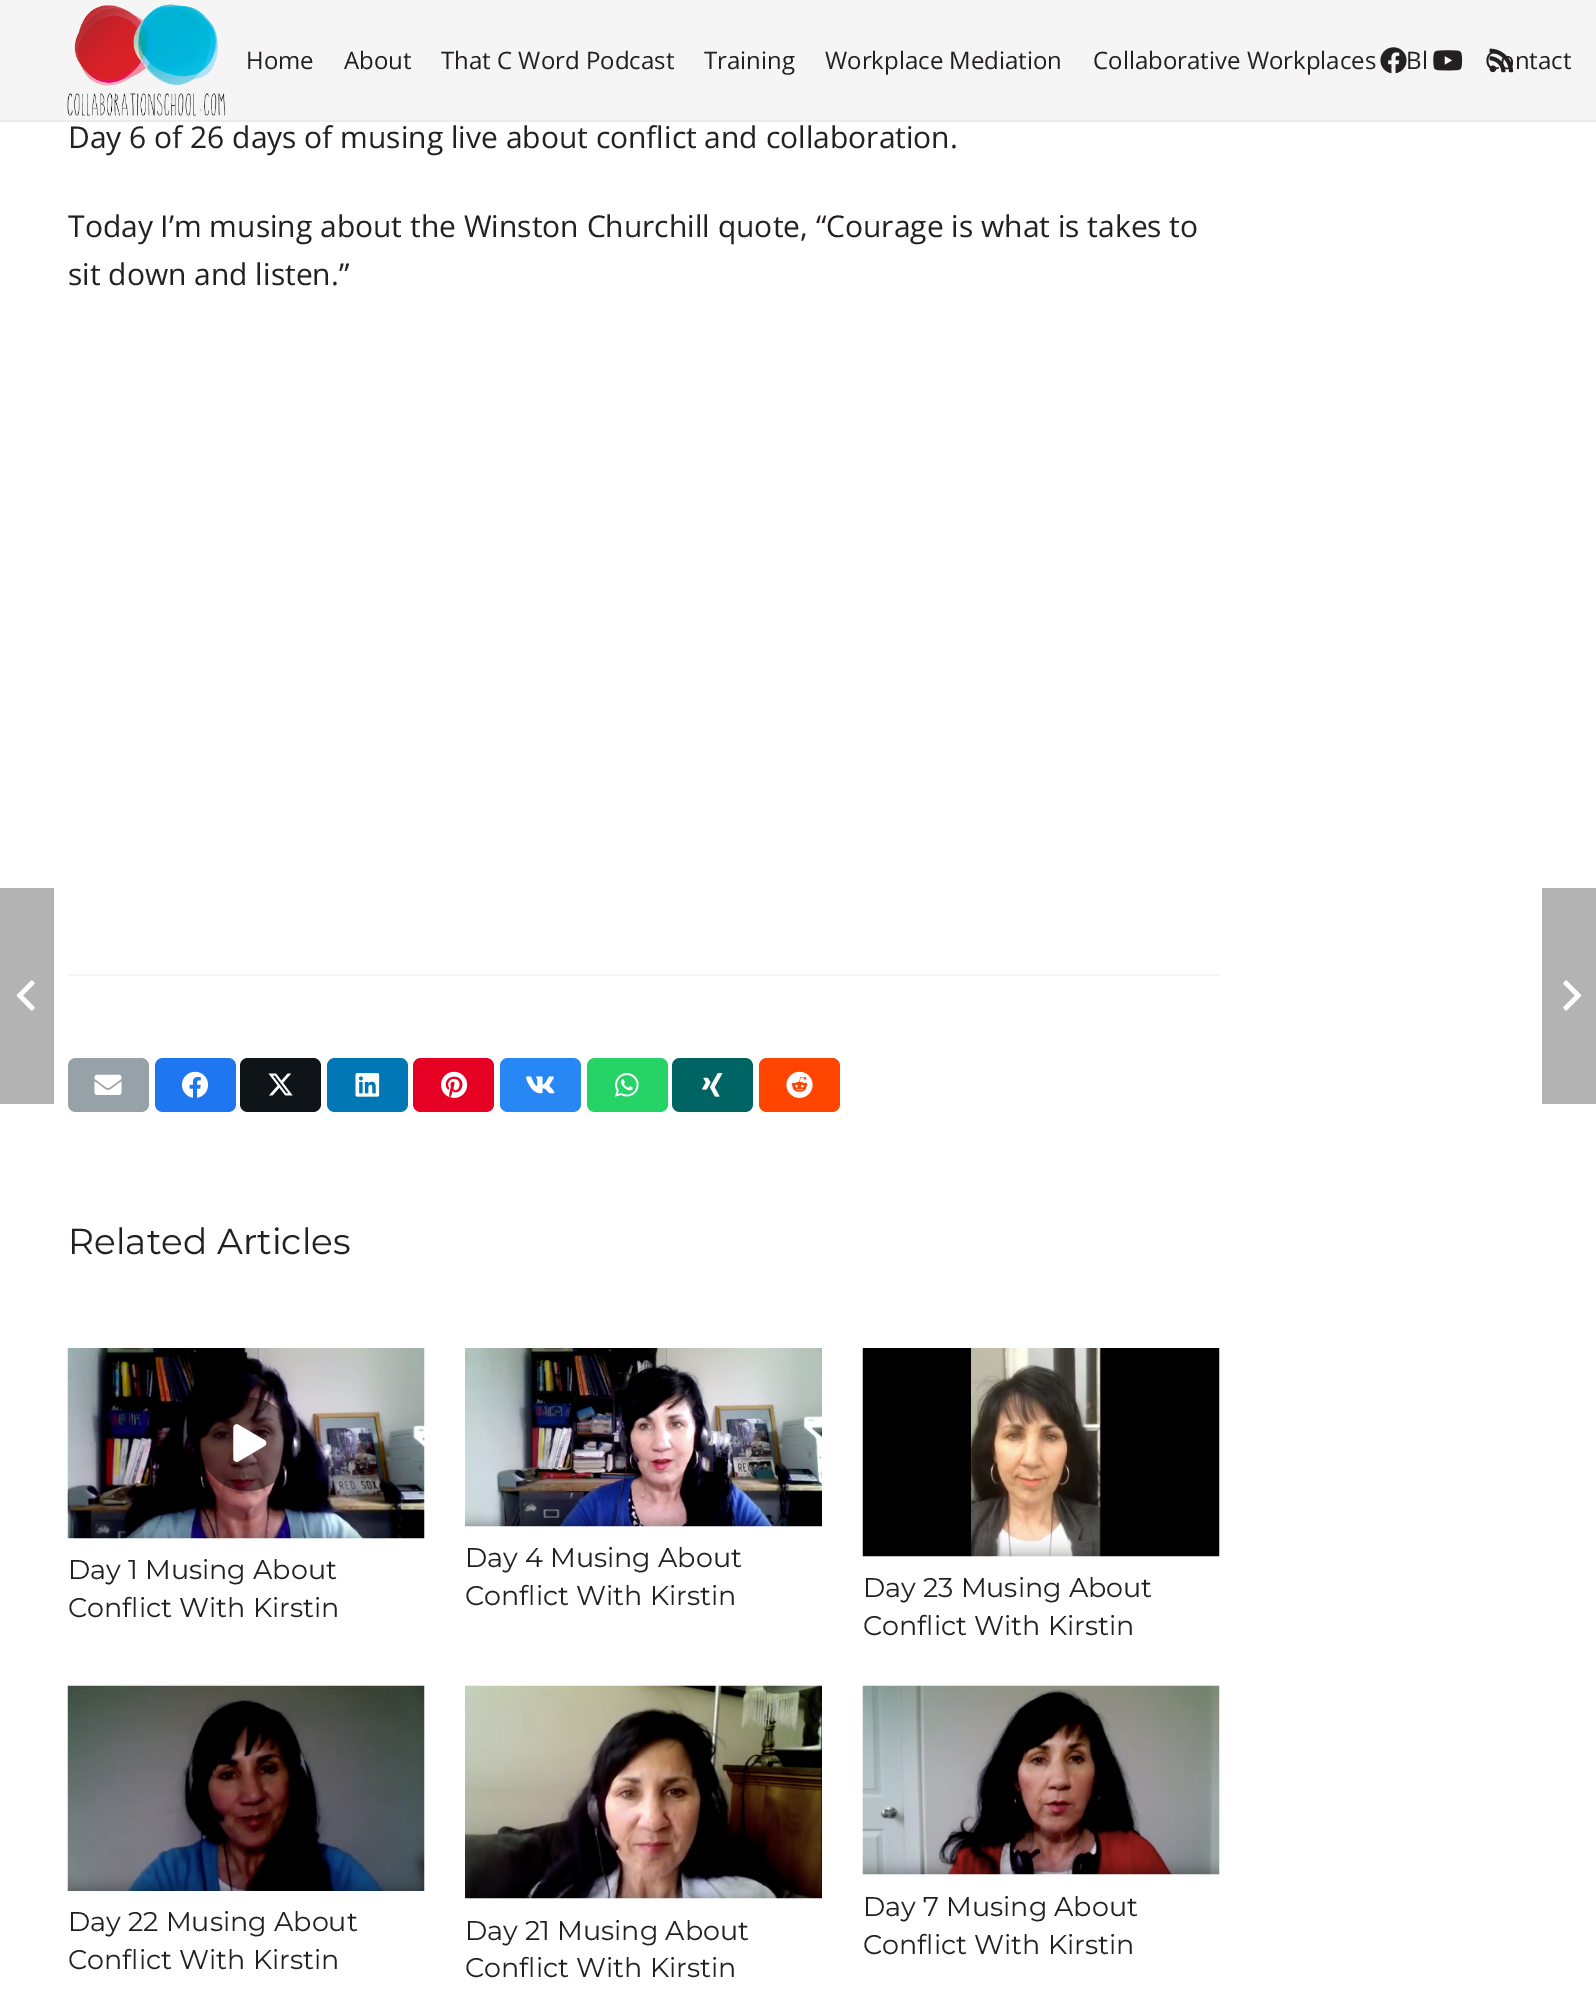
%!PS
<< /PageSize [1596 1991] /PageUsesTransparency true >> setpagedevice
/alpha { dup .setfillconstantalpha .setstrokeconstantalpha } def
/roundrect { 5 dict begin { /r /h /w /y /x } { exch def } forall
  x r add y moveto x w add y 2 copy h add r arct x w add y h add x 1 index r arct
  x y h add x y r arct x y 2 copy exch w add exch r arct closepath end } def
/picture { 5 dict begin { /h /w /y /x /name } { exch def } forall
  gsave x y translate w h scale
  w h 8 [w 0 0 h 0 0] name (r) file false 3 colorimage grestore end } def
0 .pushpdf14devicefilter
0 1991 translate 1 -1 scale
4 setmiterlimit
1 setgray
0 0 1596 1991 rectfill
0.922 setgray
0 120 1596 2 rectfill
0.961 setgray
0 0 1596 120 rectfill
(img1.rgb) 67 4 159 112 picture
(img2.rgb) 1380 47 27 27 picture
(img3.rgb) 1433 50 30 21 picture
(img4.rgb) 1489 48 25 25 picture
/OpenSans-Regular [24 0 0 -24 0 0] selectfont
0.141 0.125 0.129 setrgbcolor
246 69 moveto (Home) show
344 69 moveto (About) show
441 69 moveto (That C Word Podcast) show
704 69 moveto (Training) show
825 69 moveto (Workplace Mediation) show
1093 69 moveto (Collaborative Workplaces) show
1406 69 moveto (Bl) show
1485 69 moveto (Contact) show
/OpenSans-Regular [30 0 0 -30 0 0] selectfont
68 148 moveto (Day 6 of 26 days of musing live about conflict and collaboration.) show
68 237 moveto (Today I’m musing about the Winston Churchill quote, “Courage is what is takes to) show
68 285 moveto (sit down and listen.”) show
0.702 setgray
0 888 54 216 rectfill
(img5.rgb) 16 980 19 31 picture
1542 888 54 216 rectfill
(img6.rgb) 1563 980 19 31 picture
0.961 setgray
68 974 1152 2 rectfill
0.588 0.635 0.659 setrgbcolor
68 1058 81 54 8 roundrect fill
(img7.rgb) 94 1074 28 21 picture
0.118 0.467 0.941 setrgbcolor
155 1058 81 54 8 roundrect fill
(img8.rgb) 181 1071 28 27 picture
0.059 0.078 0.098 setrgbcolor
240 1058 81 54 8 roundrect fill
(img9.rgb) 268 1073 25 23 picture
0 0.467 0.71 setrgbcolor
327 1058 81 54 8 roundrect fill
(img10.rgb) 355 1073 25 24 picture
0.902 0 0.137 setrgbcolor
413 1058 81 54 8 roundrect fill
(img11.rgb) 441 1071 27 27 picture
0.153 0.529 0.961 setrgbcolor
500 1058 81 54 8 roundrect fill
(img12.rgb) 526 1076 29 18 picture
0.145 0.827 0.4 setrgbcolor
587 1058 81 54 8 roundrect fill
(img13.rgb) 615 1073 24 24 picture
0 0.392 0.392 setrgbcolor
672 1058 81 54 8 roundrect fill
(img14.rgb) 702 1073 21 24 picture
1 0.271 0 setrgbcolor
759 1058 81 54 8 roundrect fill
(img15.rgb) 786 1071 27 27 picture
/Montserrat-Regular [36 0 0 -36 0 0] selectfont
0.141 0.125 0.129 setrgbcolor
68 1254 moveto (Related Articles) show
(img16.rgb) 67 1348 358 191 picture
0.5 alpha
0 setgray
newpath 247 1444 47 0 360 arc closepath fill
1 alpha
(img17.rgb) 233 1424 34 38 picture
/Montserrat-Regular [27 0 0 -27 0 0] selectfont
0.141 0.125 0.129 setrgbcolor
68 1579 moveto (Day 1 Musing About) show
68 1617 moveto (Conflict With Kirstin) show
(img18.rgb) 465 1348 357 179 picture
465 1567 moveto (Day 4 Musing About) show
465 1605 moveto (Conflict With Kirstin) show
(img19.rgb) 862 1348 358 209 picture
863 1597 moveto (Day 23 Musing About) show
863 1635 moveto (Conflict With Kirstin) show
(img20.rgb) 67 1685 358 206 picture
68 1931 moveto (Day 22 Musing About) show
68 1969 moveto (Conflict With Kirstin) show
(img21.rgb) 465 1685 357 214 picture
465 1940 moveto (Day 21 Musing About) show
465 1977 moveto (Conflict With Kirstin) show
(img22.rgb) 862 1685 358 190 picture
863 1916 moveto (Day 7 Musing About) show
863 1954 moveto (Conflict With Kirstin) show
.poppdf14devicefilter showpage
